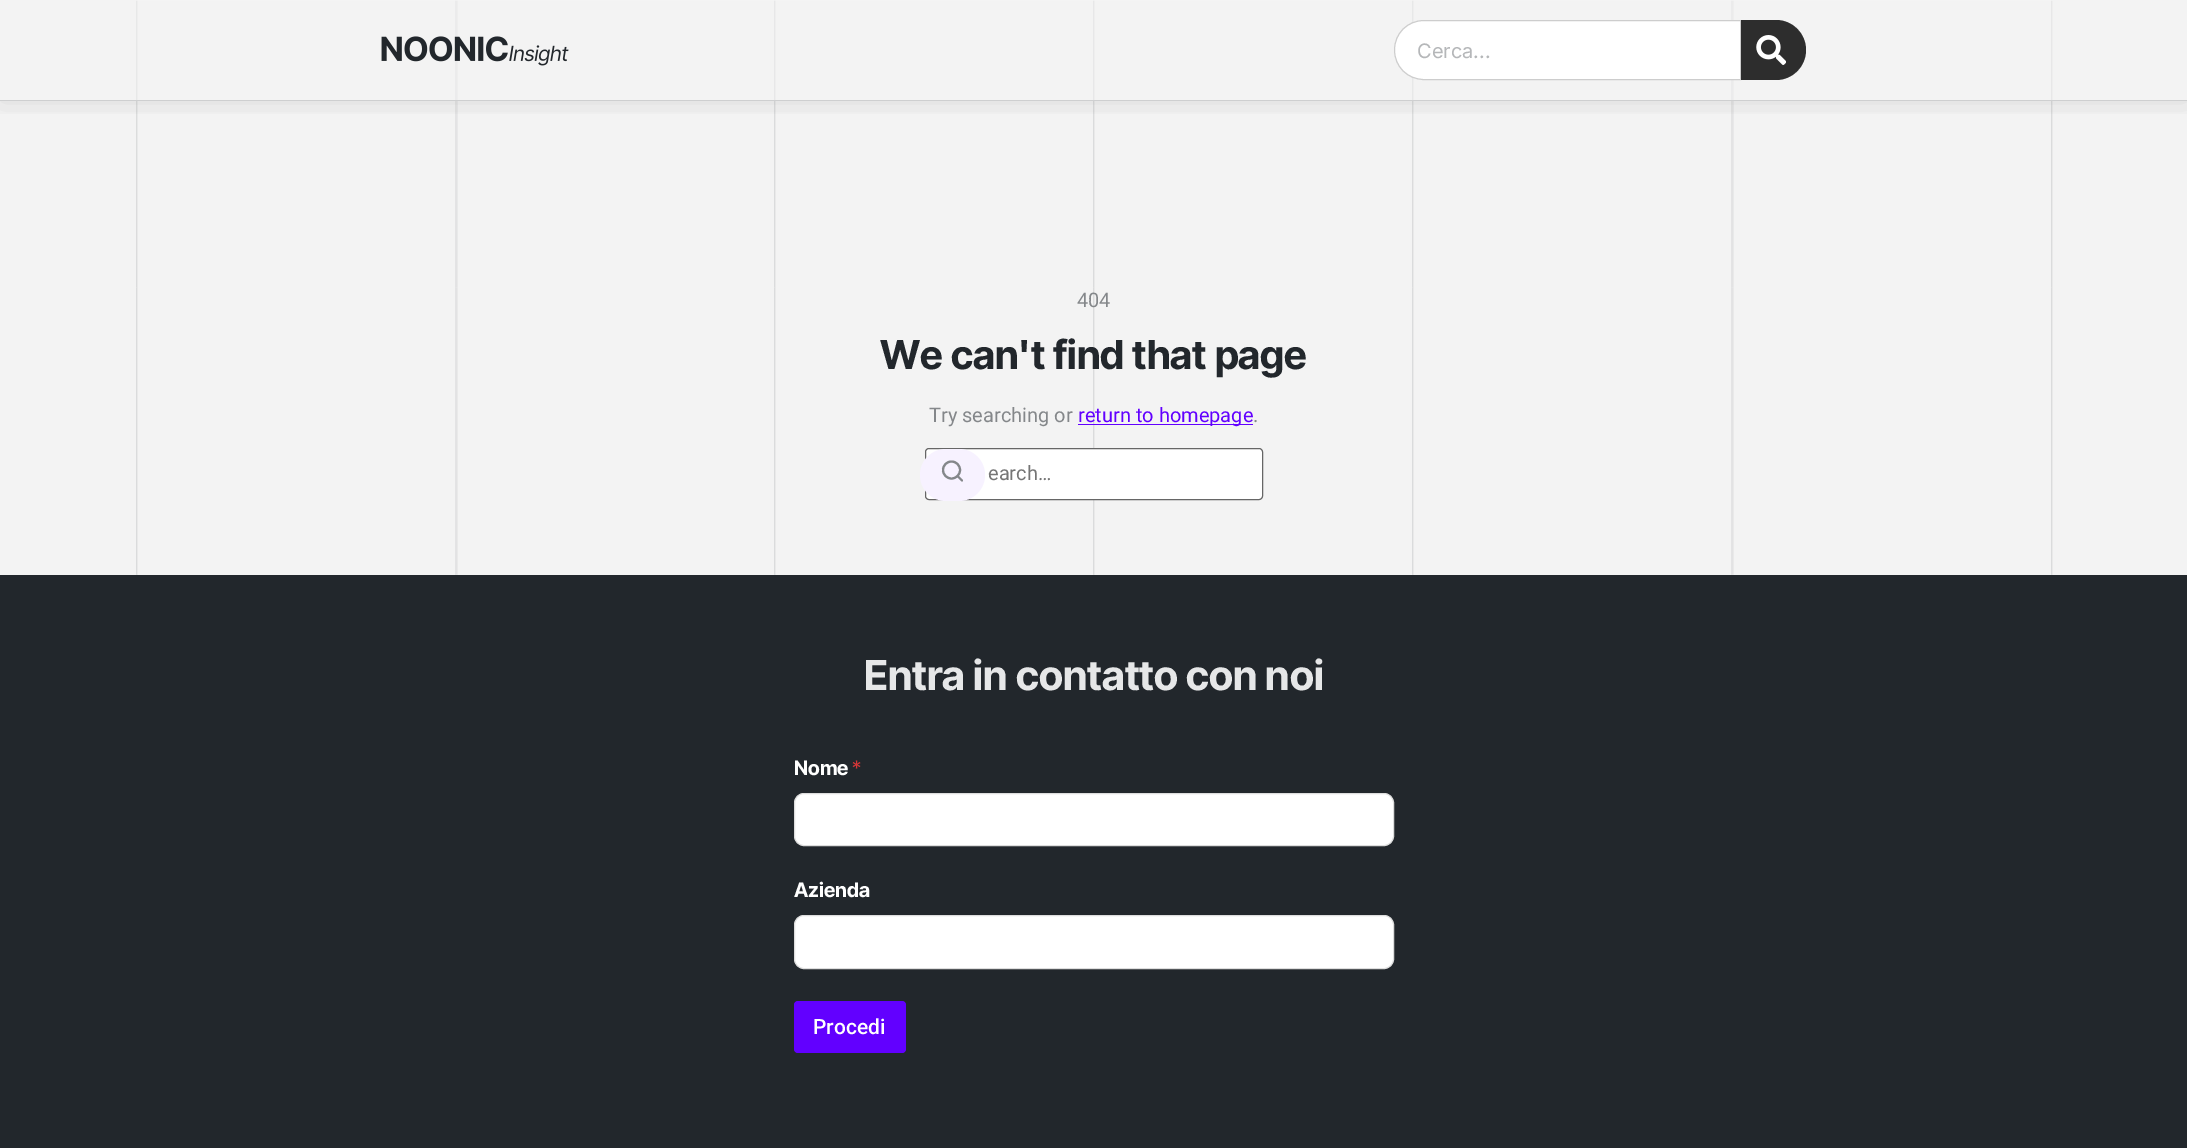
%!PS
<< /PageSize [2187 1148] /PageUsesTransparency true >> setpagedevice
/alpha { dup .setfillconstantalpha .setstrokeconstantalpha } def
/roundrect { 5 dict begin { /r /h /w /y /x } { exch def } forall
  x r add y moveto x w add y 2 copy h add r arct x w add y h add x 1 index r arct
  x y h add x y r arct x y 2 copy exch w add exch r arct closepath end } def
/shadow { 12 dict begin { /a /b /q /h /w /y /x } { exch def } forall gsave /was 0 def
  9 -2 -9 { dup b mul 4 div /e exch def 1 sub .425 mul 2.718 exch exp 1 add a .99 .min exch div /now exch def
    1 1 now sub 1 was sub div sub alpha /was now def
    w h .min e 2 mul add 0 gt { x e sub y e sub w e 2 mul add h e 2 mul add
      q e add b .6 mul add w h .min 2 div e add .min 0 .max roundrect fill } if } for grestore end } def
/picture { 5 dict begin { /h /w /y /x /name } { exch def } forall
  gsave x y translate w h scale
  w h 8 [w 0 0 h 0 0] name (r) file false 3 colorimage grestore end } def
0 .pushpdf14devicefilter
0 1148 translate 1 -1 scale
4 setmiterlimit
0.953 setgray
0 0 2187 1148 rectfill
(img1.rgb) 136 0 1917 575 picture
gsave
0 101 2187 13 rectclip
0 setgray
0 0 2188 101 0 15 0.1 shadow
grestore
0.2 alpha
1 setgray
136 0 1917 1 rectfill
1 alpha
0.808 0.812 0.816 setrgbcolor
0 100 2187 1 rectfill
0.5 alpha
0.953 setgray
136 0 1917 100 rectfill
1 alpha
(img2.rgb) 381 36 188 30 picture
1 setgray
newpath 1424 20.5 moveto 1740.5 20.5 lineto 1740.5 79.5 lineto 1424 79.5 lineto 1407.5 79.5 1394.5 66.5 1394.5 50 curveto 1394.5 33.5 1407.5 20.5 1424 20.5 curveto closepath gsave fill grestore
0.804 setgray
stroke
/Inter-Regular [20 0 0 -20 0 0] selectfont
0.71 0.718 0.725 setrgbcolor
1417 58 moveto (Cerca...) show
0.176 setgray
newpath 1741 20 moveto 1776 20 lineto 1792.5 20 1806 33.5 1806 50 curveto 1806 66.5 1792.5 80 1776 80 curveto 1741 80 lineto closepath fill
(img3.rgb) 1756 35 30 30 picture
/Roboto-Regular [20 0 0 -20 0 0] selectfont
0.518 0.529 0.541 setrgbcolor
1077 307 moveto (404) show
/InterTight-Bold [40 0 0 -40 0 0] selectfont
0.133 0.153 0.173 setrgbcolor
880 369 moveto (We can't find that page) show
/Roboto-Regular [20 0 0 -20 0 0] selectfont
0.518 0.529 0.541 setrgbcolor
929 422 moveto (Try searching or) show
0.384 0 1 setrgbcolor
1078 424 175 1 rectfill
1078 422 moveto (return to homepage) show
0.518 0.529 0.541 setrgbcolor
1253 422 moveto (.) show
1 setgray
925.5 448.5 337 51 3.5 roundrect gsave fill grestore
0.4 setgray
stroke
0.969 0.949 1 setrgbcolor
920 449 65 52 26 roundrect fill
0.518 0.529 0.541 setrgbcolor
2.1 setlinewidth
newpath 951.5 470 8.5 0 360 arc closepath stroke
1 setlinecap
1 setlinejoin
newpath 962 480.5 moveto 957.5 476 lineto stroke
0.459 setgray
988 480 moveto (earch…) show
0.133 0.153 0.173 setrgbcolor
0 575 2187 573 rectfill
/InterTight-Bold [41.25 0 0 -41.25 0 0] selectfont
0.902 0.906 0.91 setrgbcolor
864 690 moveto (Entra in contatto con noi) show
/InterTight-Bold [20 0 0 -20 0 0] selectfont
1 setgray
794 775 moveto (Nome) show
/InterTight-Regular [20 0 0 -20 0 0] selectfont
0.839 0.212 0.216 setrgbcolor
852 775 moveto (*) show
1 setgray
794.5 793.5 599 52 9.5 roundrect gsave fill grestore
0.867 setgray
1 setlinewidth
0 setlinecap
0 setlinejoin
stroke
/InterTight-Bold [20 0 0 -20 0 0] selectfont
1 setgray
794 897 moveto (Azienda) show
794.5 915.5 599 53 9.5 roundrect gsave fill grestore
0.867 setgray
stroke
0.384 0 1 setrgbcolor
794 1001 112 52 4 roundrect fill
/Roboto-Medium [21 0 0 -21 0 0] selectfont
1 setgray
813 1034 moveto (Procedi) show
.poppdf14devicefilter showpage
